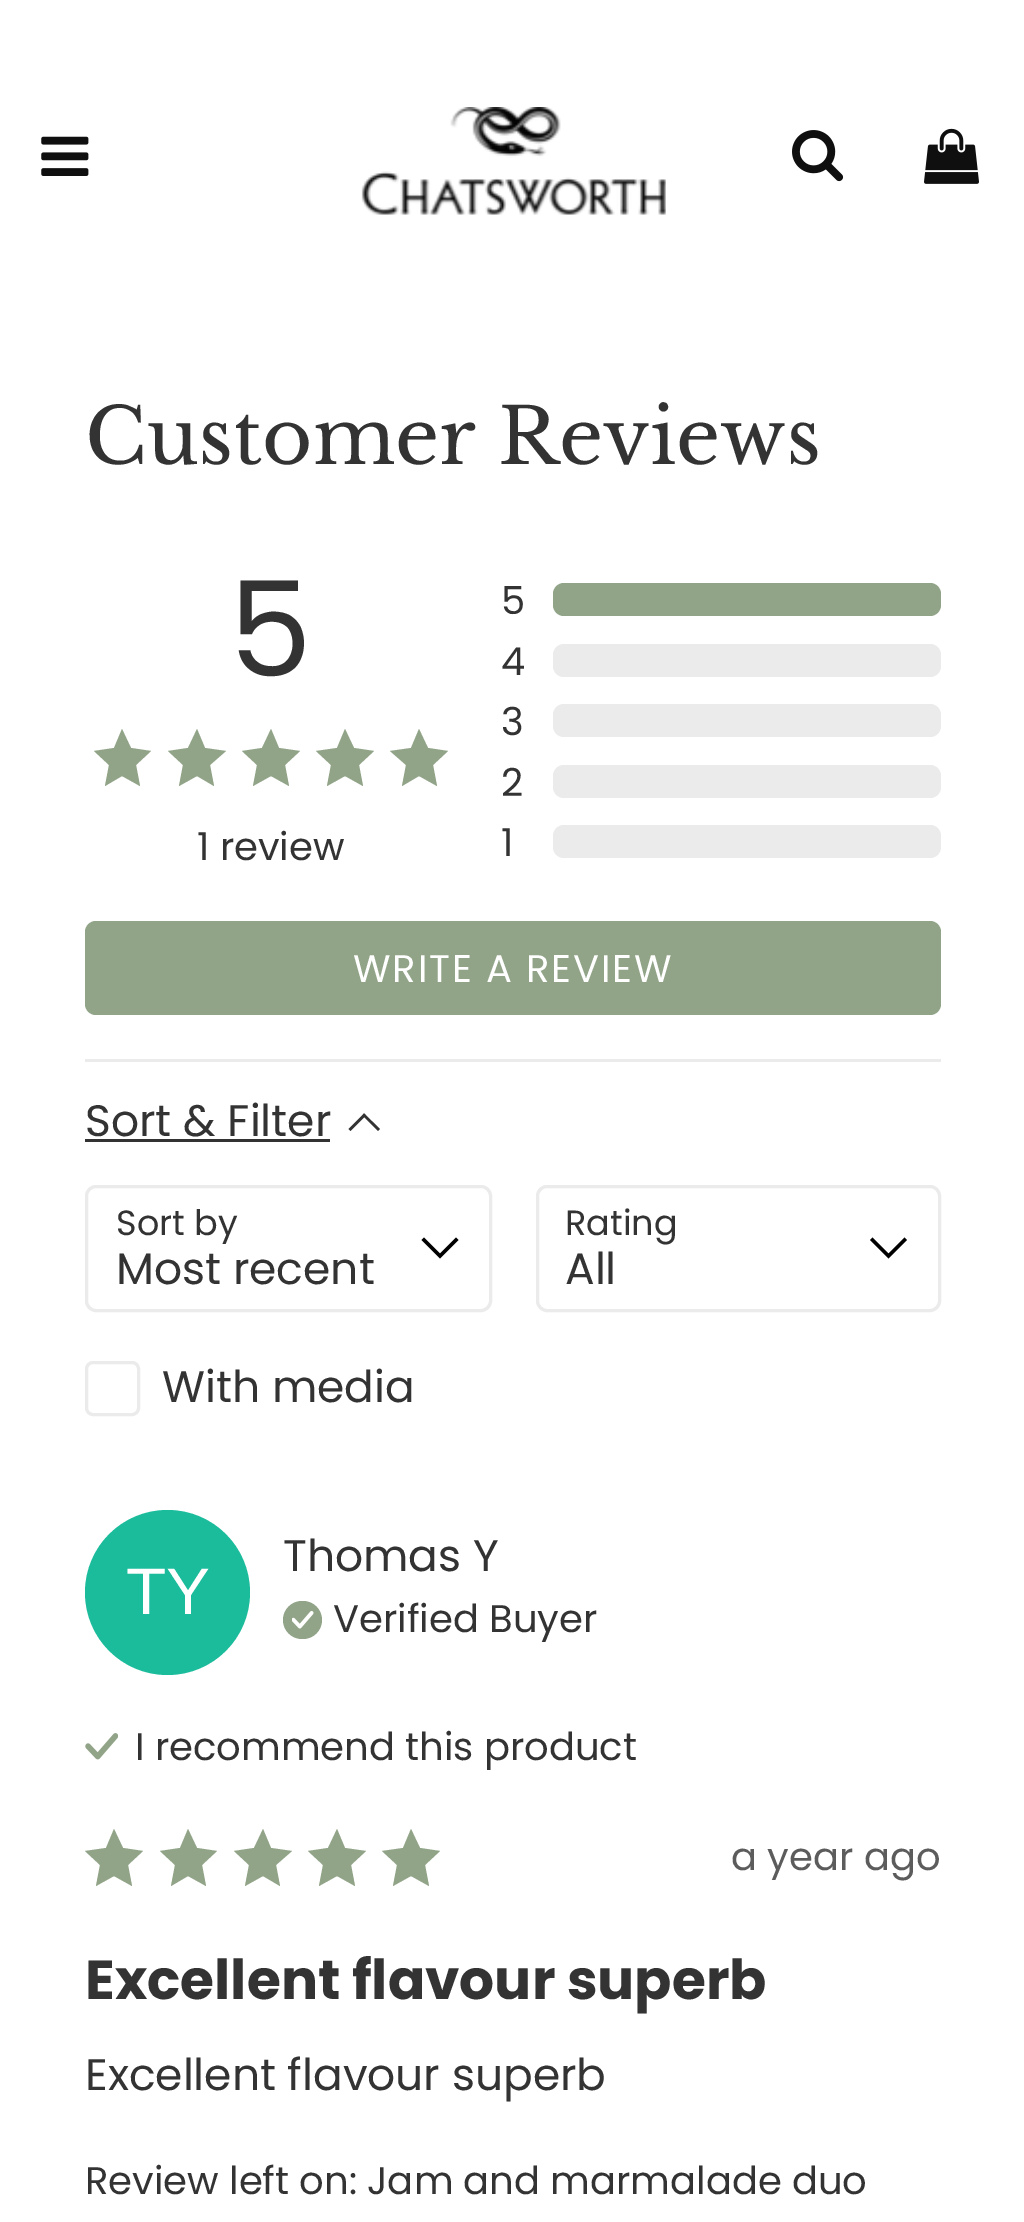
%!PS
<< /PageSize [1024 2222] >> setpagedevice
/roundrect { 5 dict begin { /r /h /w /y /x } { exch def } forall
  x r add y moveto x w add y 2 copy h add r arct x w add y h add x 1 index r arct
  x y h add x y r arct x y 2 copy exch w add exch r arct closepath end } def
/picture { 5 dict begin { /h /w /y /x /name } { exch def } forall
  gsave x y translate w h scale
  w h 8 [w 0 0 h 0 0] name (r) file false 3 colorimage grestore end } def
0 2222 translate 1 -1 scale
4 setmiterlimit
1 setgray
0 0 1024 2222 rectfill
(img1.rgb) 41 136 48 40 picture
(img2.rgb) 361 107 305 108 picture
(img3.rgb) 792 130 52 52 picture
(img4.rgb) 924 128 55 56 picture
/LibreBaskerville-Regular [77 0 0 -77 0 0] selectfont
0.2 setgray
85 464 moveto (Customer Reviews) show
/Poppins-Regular [132 0 0 -132 0 0] selectfont
229 676 moveto (5) show
0.569 0.643 0.533 setrgbcolor
newpath 131 748 moveto 122 729 lineto 114 748 lineto 94 751 lineto 109 765 lineto 105 786 lineto 122 776 lineto 140 786 lineto 136 765 lineto 151 751 lineto closepath 127 754 moveto 122 744 lineto 118 754 lineto 107 755 lineto 115 763 lineto 113 774 lineto 122 769 lineto 132 774 lineto 130 763 lineto 138 755 lineto closepath eofill
newpath 205 748 moveto 197 729 lineto 188 748 lineto 168 751 lineto 183 765 lineto 179 786 lineto 197 776 lineto 214 786 lineto 210 765 lineto 226 751 lineto closepath 201 754 moveto 197 744 lineto 192 754 lineto 181 755 lineto 189 763 lineto 187 774 lineto 197 769 lineto 206 774 lineto 204 763 lineto 212 755 lineto closepath eofill
newpath 279 748 moveto 271 729 lineto 262 748 lineto 242 751 lineto 257 765 lineto 253 786 lineto 271 776 lineto 289 786 lineto 285 765 lineto 300 751 lineto closepath 275 754 moveto 271 744 lineto 267 754 lineto 255 755 lineto 264 763 lineto 262 774 lineto 271 769 lineto 280 774 lineto 278 763 lineto 286 755 lineto closepath eofill
newpath 354 748 moveto 345 729 lineto 337 748 lineto 316 751 lineto 331 765 lineto 327 786 lineto 345 776 lineto 363 786 lineto 359 765 lineto 374 751 lineto closepath 349 754 moveto 345 744 lineto 341 754 lineto 330 755 lineto 338 763 lineto 336 774 lineto 345 769 lineto 354 774 lineto 352 763 lineto 361 755 lineto closepath eofill
newpath 428 748 moveto 419 729 lineto 411 748 lineto 390 751 lineto 406 765 lineto 402 786 lineto 419 776 lineto 437 786 lineto 433 765 lineto 448 751 lineto closepath 424 754 moveto 419 744 lineto 415 754 lineto 404 755 lineto 412 763 lineto 410 774 lineto 419 769 lineto 429 774 lineto 427 763 lineto 435 755 lineto closepath eofill
newpath 122 732 moveto 130 750 lineto 148 752 lineto 134 764 lineto 138 783 lineto 122 774 lineto 107 783 lineto 110 764 lineto 97 752 lineto 115 750 lineto closepath fill
newpath 197 732 moveto 204 750 lineto 222 752 lineto 209 764 lineto 212 783 lineto 197 774 lineto 181 783 lineto 185 764 lineto 171 752 lineto 189 750 lineto closepath fill
newpath 271 732 moveto 278 750 lineto 296 752 lineto 283 764 lineto 286 783 lineto 271 774 lineto 255 783 lineto 259 764 lineto 246 752 lineto 263 750 lineto closepath fill
newpath 345 732 moveto 353 750 lineto 370 752 lineto 357 764 lineto 361 783 lineto 345 774 lineto 330 783 lineto 333 764 lineto 320 752 lineto 338 750 lineto closepath fill
newpath 419 732 moveto 427 750 lineto 445 752 lineto 431 764 lineto 435 783 lineto 419 774 lineto 404 783 lineto 407 764 lineto 394 752 lineto 412 750 lineto closepath fill
/Poppins-Regular [38.5 0 0 -38.5 0 0] selectfont
0.2 setgray
197 860 moveto (1 review) show
501 614 moveto (5) show
0.569 0.643 0.533 setrgbcolor
553 583 388 33 11 roundrect fill
0.2 setgray
501 675 moveto (4) show
0.922 setgray
553 644 388 33 11 roundrect fill
0.2 setgray
501 735 moveto (3) show
0.922 setgray
553 704 388 33 11 roundrect fill
0.2 setgray
501 796 moveto (2) show
0.922 setgray
553 765 388 33 11 roundrect fill
0.2 setgray
501 856 moveto (1) show
0.922 setgray
553 825 388 33 11 roundrect fill
0.569 0.643 0.533 setrgbcolor
85 921 856 94 11 roundrect fill
1 setgray
353 982 moveto 1.9 0 (WRITE A REVIEW) ashow
0.922 setgray
85 1059 856 3 rectfill
/Poppins-Regular [44 0 0 -44 0 0] selectfont
0.2 setgray
85 1136 moveto (Sort & Filter) show
85 1139 245 3 rectfill
newpath 350.5 1131 moveto 348.5 1129 lineto 364 1113.5 lineto 366 1115.5 lineto closepath fill
newpath 378 1131 moveto 362.5 1115.5 lineto 364 1113.5 lineto 380 1129 lineto closepath fill
0 setgray
newpath 440 1258.5 moveto 421.5 1240 lineto 424 1237.5 lineto 440 1253.5 lineto 456 1237.5 lineto 458.5 1240 lineto closepath fill
0.922 setgray
3 setlinewidth
86.5 1186.5 404 124 9.5 roundrect stroke
/Poppins-Regular [35 0 0 -35 0 0] selectfont
0.2 setgray
116 1235 moveto (Sort by) show
/Poppins-Regular [44 0 0 -44 0 0] selectfont
116 1284 moveto (Most recent) show
0 setgray
newpath 888.5 1258.5 moveto 870 1240 lineto 872.5 1237.5 lineto 888.5 1253.5 lineto 904.5 1237.5 lineto 907 1240 lineto closepath fill
0.922 setgray
537.5 1186.5 402 124 9.5 roundrect stroke
/Poppins-Regular [35 0 0 -35 0 0] selectfont
0.2 setgray
565 1235 moveto (Rating) show
/Poppins-Regular [44 0 0 -44 0 0] selectfont
565 1284 moveto (All) show
0.922 setgray
86.5 1362.5 52 52 6.5 roundrect stroke
0.2 setgray
162 1402 moveto (With media) show
0.102 0.737 0.612 setrgbcolor
newpath 167.5 1592.5 82.5 0 360 arc closepath fill
/LiberationSans-Regular [66 0 0 -66 0 0] selectfont
1 setgray
126 1614 moveto (TY) show
/Poppins-Regular [44 0 0 -44 0 0] selectfont
0.2 setgray
283 1571 moveto (Thomas Y) show
0.569 0.643 0.533 setrgbcolor
283 1601 39 38 19 roundrect fill
(img5.rgb) 292 1611 22 18 picture
/Poppins-Regular [38.5 0 0 -38.5 0 0] selectfont
0.2 setgray
333 1632 moveto (Verified Buyer) show
(img6.rgb) 85 1733 33 27 picture
135 1760 moveto (I recommend this product) show
0.569 0.643 0.533 setrgbcolor
newpath 123 1848 moveto 114 1829 lineto 106 1848 lineto 85 1851 lineto 100 1865 lineto 96 1886 lineto 114 1876 lineto 132 1886 lineto 128 1865 lineto 143 1851 lineto closepath 118 1854 moveto 114 1844 lineto 110 1854 lineto 99 1855 lineto 107 1863 lineto 105 1874 lineto 114 1869 lineto 123 1874 lineto 121 1863 lineto 130 1855 lineto closepath eofill
newpath 197 1848 moveto 188 1829 lineto 180 1848 lineto 160 1851 lineto 175 1865 lineto 171 1886 lineto 188 1876 lineto 206 1886 lineto 202 1865 lineto 217 1851 lineto closepath 193 1854 moveto 188 1844 lineto 184 1854 lineto 173 1855 lineto 181 1863 lineto 179 1874 lineto 188 1869 lineto 198 1874 lineto 196 1863 lineto 204 1855 lineto closepath eofill
newpath 271 1848 moveto 263 1829 lineto 254 1848 lineto 234 1851 lineto 249 1865 lineto 245 1886 lineto 263 1876 lineto 280 1886 lineto 276 1865 lineto 292 1851 lineto closepath 267 1854 moveto 263 1844 lineto 258 1854 lineto 247 1855 lineto 255 1863 lineto 253 1874 lineto 263 1869 lineto 272 1874 lineto 270 1863 lineto 278 1855 lineto closepath eofill
newpath 345 1848 moveto 337 1829 lineto 328 1848 lineto 308 1851 lineto 323 1865 lineto 319 1886 lineto 337 1876 lineto 355 1886 lineto 351 1865 lineto 366 1851 lineto closepath 341 1854 moveto 337 1844 lineto 333 1854 lineto 321 1855 lineto 330 1863 lineto 328 1874 lineto 337 1869 lineto 346 1874 lineto 344 1863 lineto 352 1855 lineto closepath eofill
newpath 420 1848 moveto 411 1829 lineto 403 1848 lineto 382 1851 lineto 397 1865 lineto 393 1886 lineto 411 1876 lineto 429 1886 lineto 425 1865 lineto 440 1851 lineto closepath 415 1854 moveto 411 1844 lineto 407 1854 lineto 396 1855 lineto 404 1863 lineto 402 1874 lineto 411 1869 lineto 420 1874 lineto 418 1863 lineto 427 1855 lineto closepath eofill
newpath 114 1832 moveto 122 1850 lineto 139 1852 lineto 126 1864 lineto 130 1883 lineto 114 1874 lineto 99 1883 lineto 102 1864 lineto 89 1852 lineto 107 1850 lineto closepath fill
newpath 188 1832 moveto 196 1850 lineto 214 1852 lineto 200 1864 lineto 204 1883 lineto 188 1874 lineto 173 1883 lineto 176 1864 lineto 163 1852 lineto 181 1850 lineto closepath fill
newpath 263 1832 moveto 270 1850 lineto 288 1852 lineto 275 1864 lineto 278 1883 lineto 263 1874 lineto 247 1883 lineto 251 1864 lineto 237 1852 lineto 255 1850 lineto closepath fill
newpath 337 1832 moveto 344 1850 lineto 362 1852 lineto 349 1864 lineto 352 1883 lineto 337 1874 lineto 321 1883 lineto 325 1864 lineto 312 1852 lineto 329 1850 lineto closepath fill
newpath 411 1832 moveto 419 1850 lineto 436 1852 lineto 423 1864 lineto 427 1883 lineto 411 1874 lineto 396 1883 lineto 399 1864 lineto 386 1852 lineto 404 1850 lineto closepath fill
0.361 setgray
731 1870 moveto (a year ago) show
/Poppins-Bold [55 0 0 -55 0 0] selectfont
0.2 setgray
85 1999 moveto (Excellent flavour superb) show
/Poppins-Regular [44 0 0 -44 0 0] selectfont
85 2090 moveto (Excellent flavour superb) show
/Poppins-Regular [38.5 0 0 -38.5 0 0] selectfont
85 2194 moveto (Review left on: Jam and marmalade duo) show
showpage
